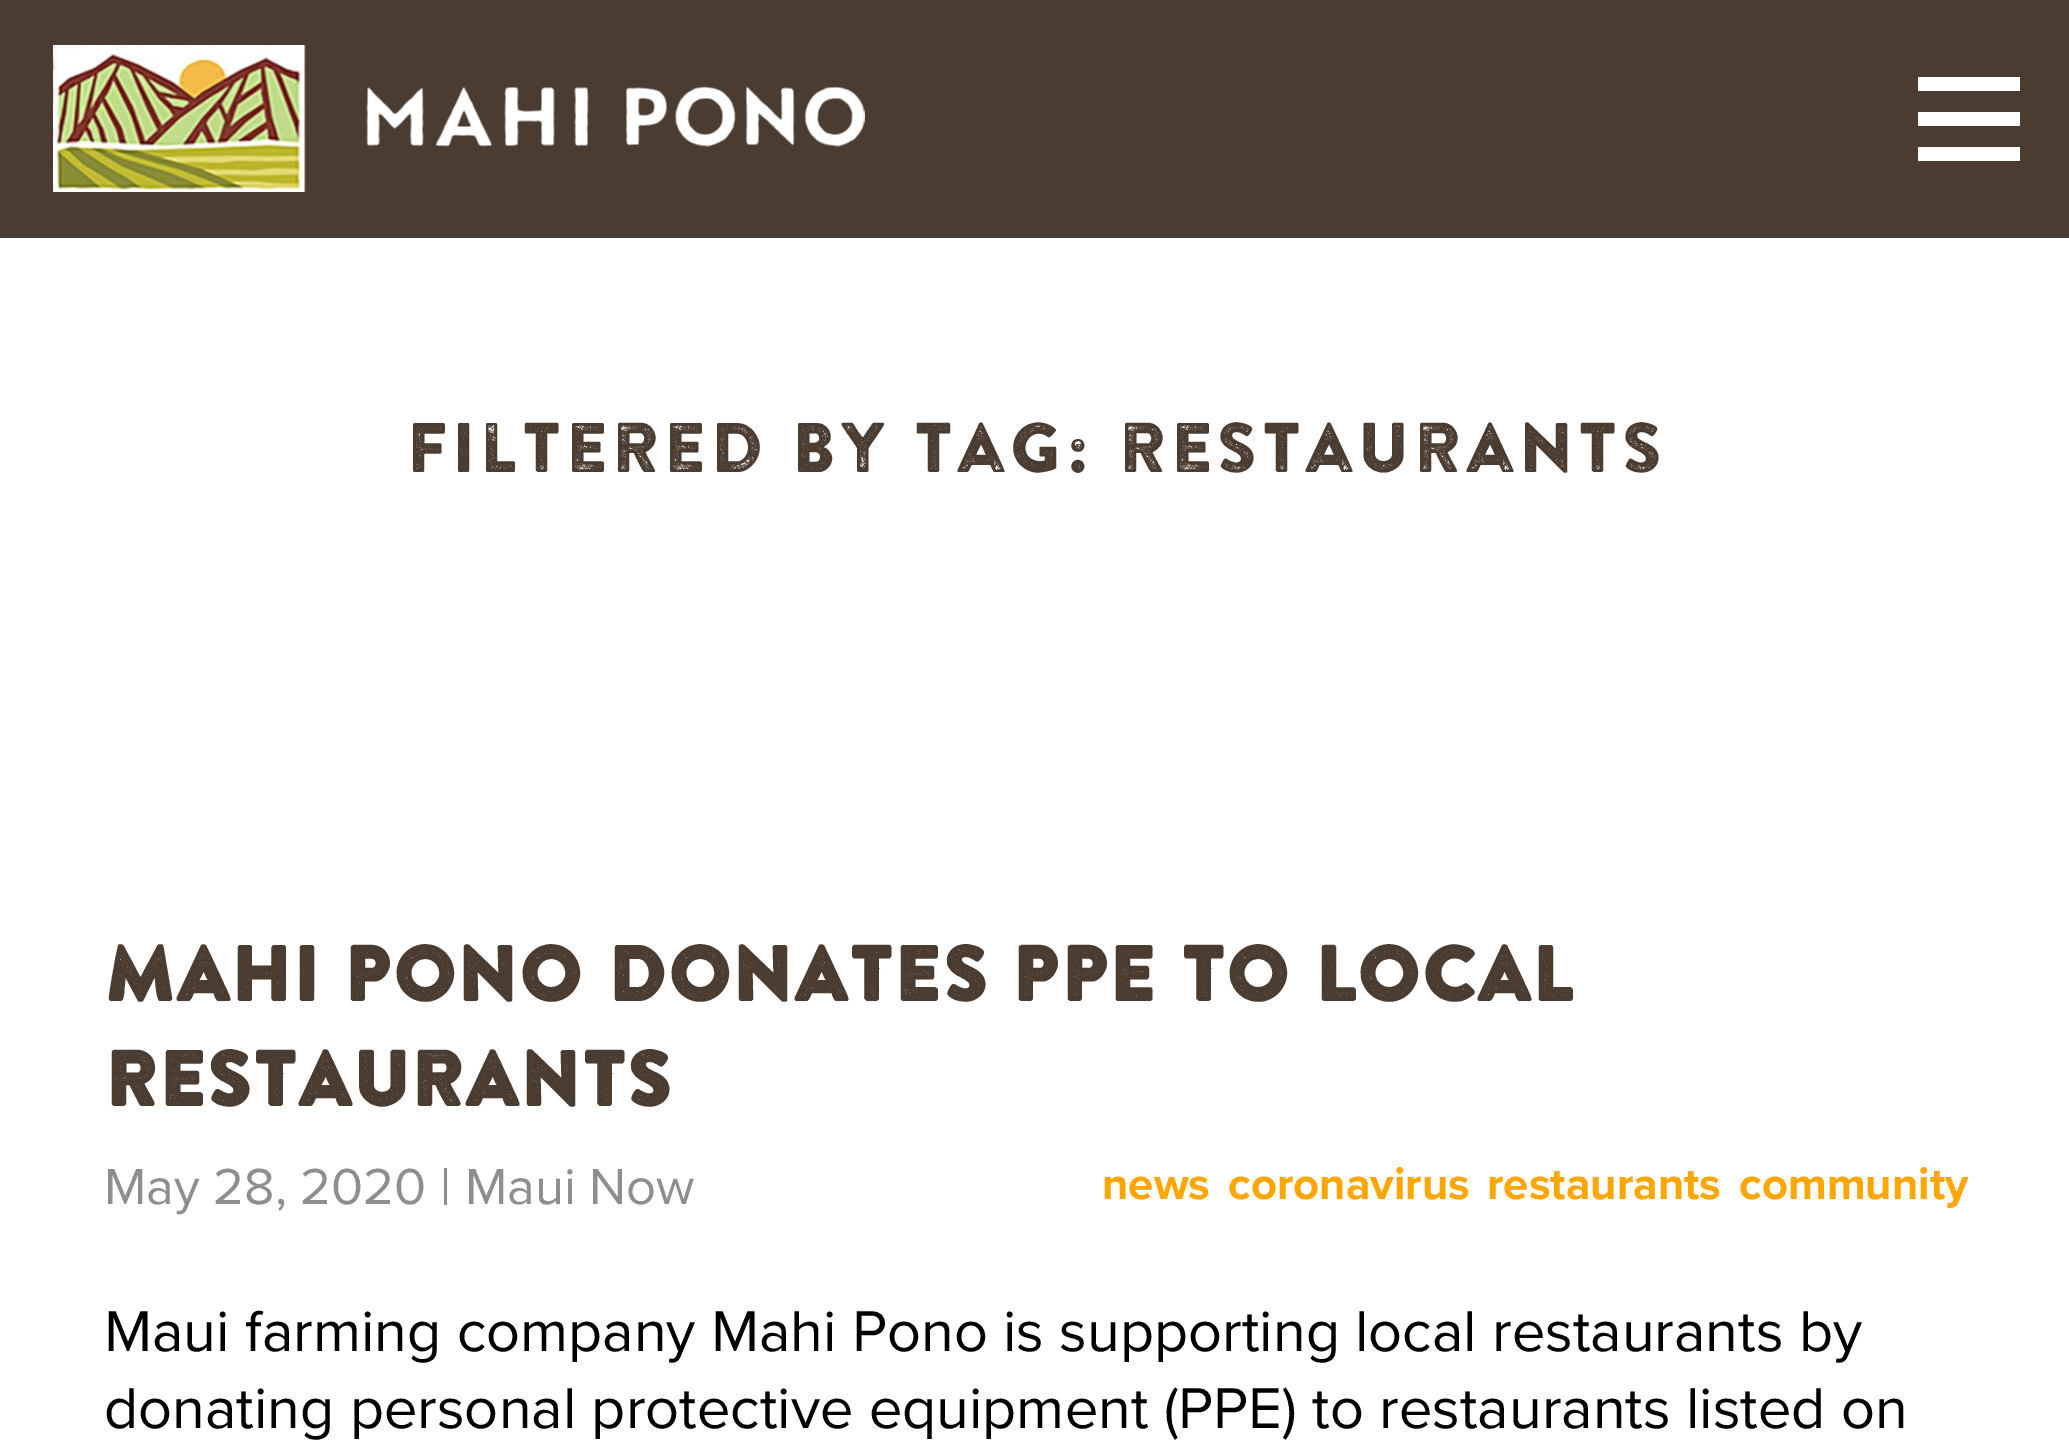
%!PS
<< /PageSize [2069 1448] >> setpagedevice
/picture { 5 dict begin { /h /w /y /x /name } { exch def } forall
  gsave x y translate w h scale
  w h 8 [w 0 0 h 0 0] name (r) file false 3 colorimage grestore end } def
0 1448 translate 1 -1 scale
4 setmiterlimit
1 setgray
0 0 2069 1448 rectfill
0.29 0.235 0.192 setrgbcolor
0 0 2069 238 rectfill
(img1.rgb) 53 45 812 147 picture
1 setgray
1918 77 102 14 rectfill
1918 112 102 14 rectfill
1918 147 102 14 rectfill
/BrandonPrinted-ExtraLight [70 0 0 -70 0 0] selectfont
0.29 0.235 0.192 setrgbcolor
406 472 moveto 2.8 0 (Filtered By Tag: restaurants) ashow
/BrandonPrinted-Bold [77 0 0 -77 0 0] selectfont
104 1001 moveto (Mahi Pono Donates PPE to Local) show
104 1106 moveto (Restaurants) show
/ProximaNova-Regular [52.5 0 0 -52.5 0 0] selectfont
0.557 setgray
104 1204 moveto (May 28, 2020 | Maui Now) show
/ProximaNova-Bold [45.5 0 0 -45.5 0 0] selectfont
1 0.655 0 setrgbcolor
1102 1199 moveto (news) show
1228 1199 moveto (coronavirus) show
1487 1199 moveto (restaurants) show
1739 1199 moveto (community) show
/ProximaNova-Regular [59.5 0 0 -59.5 0 0] selectfont
0 setgray
104 1351 moveto (Maui farming company Mahi Pono is supporting local restaurants by) show
104 1428 moveto (donating personal protective equipment \(PPE\) to restaurants listed on) show
showpage
